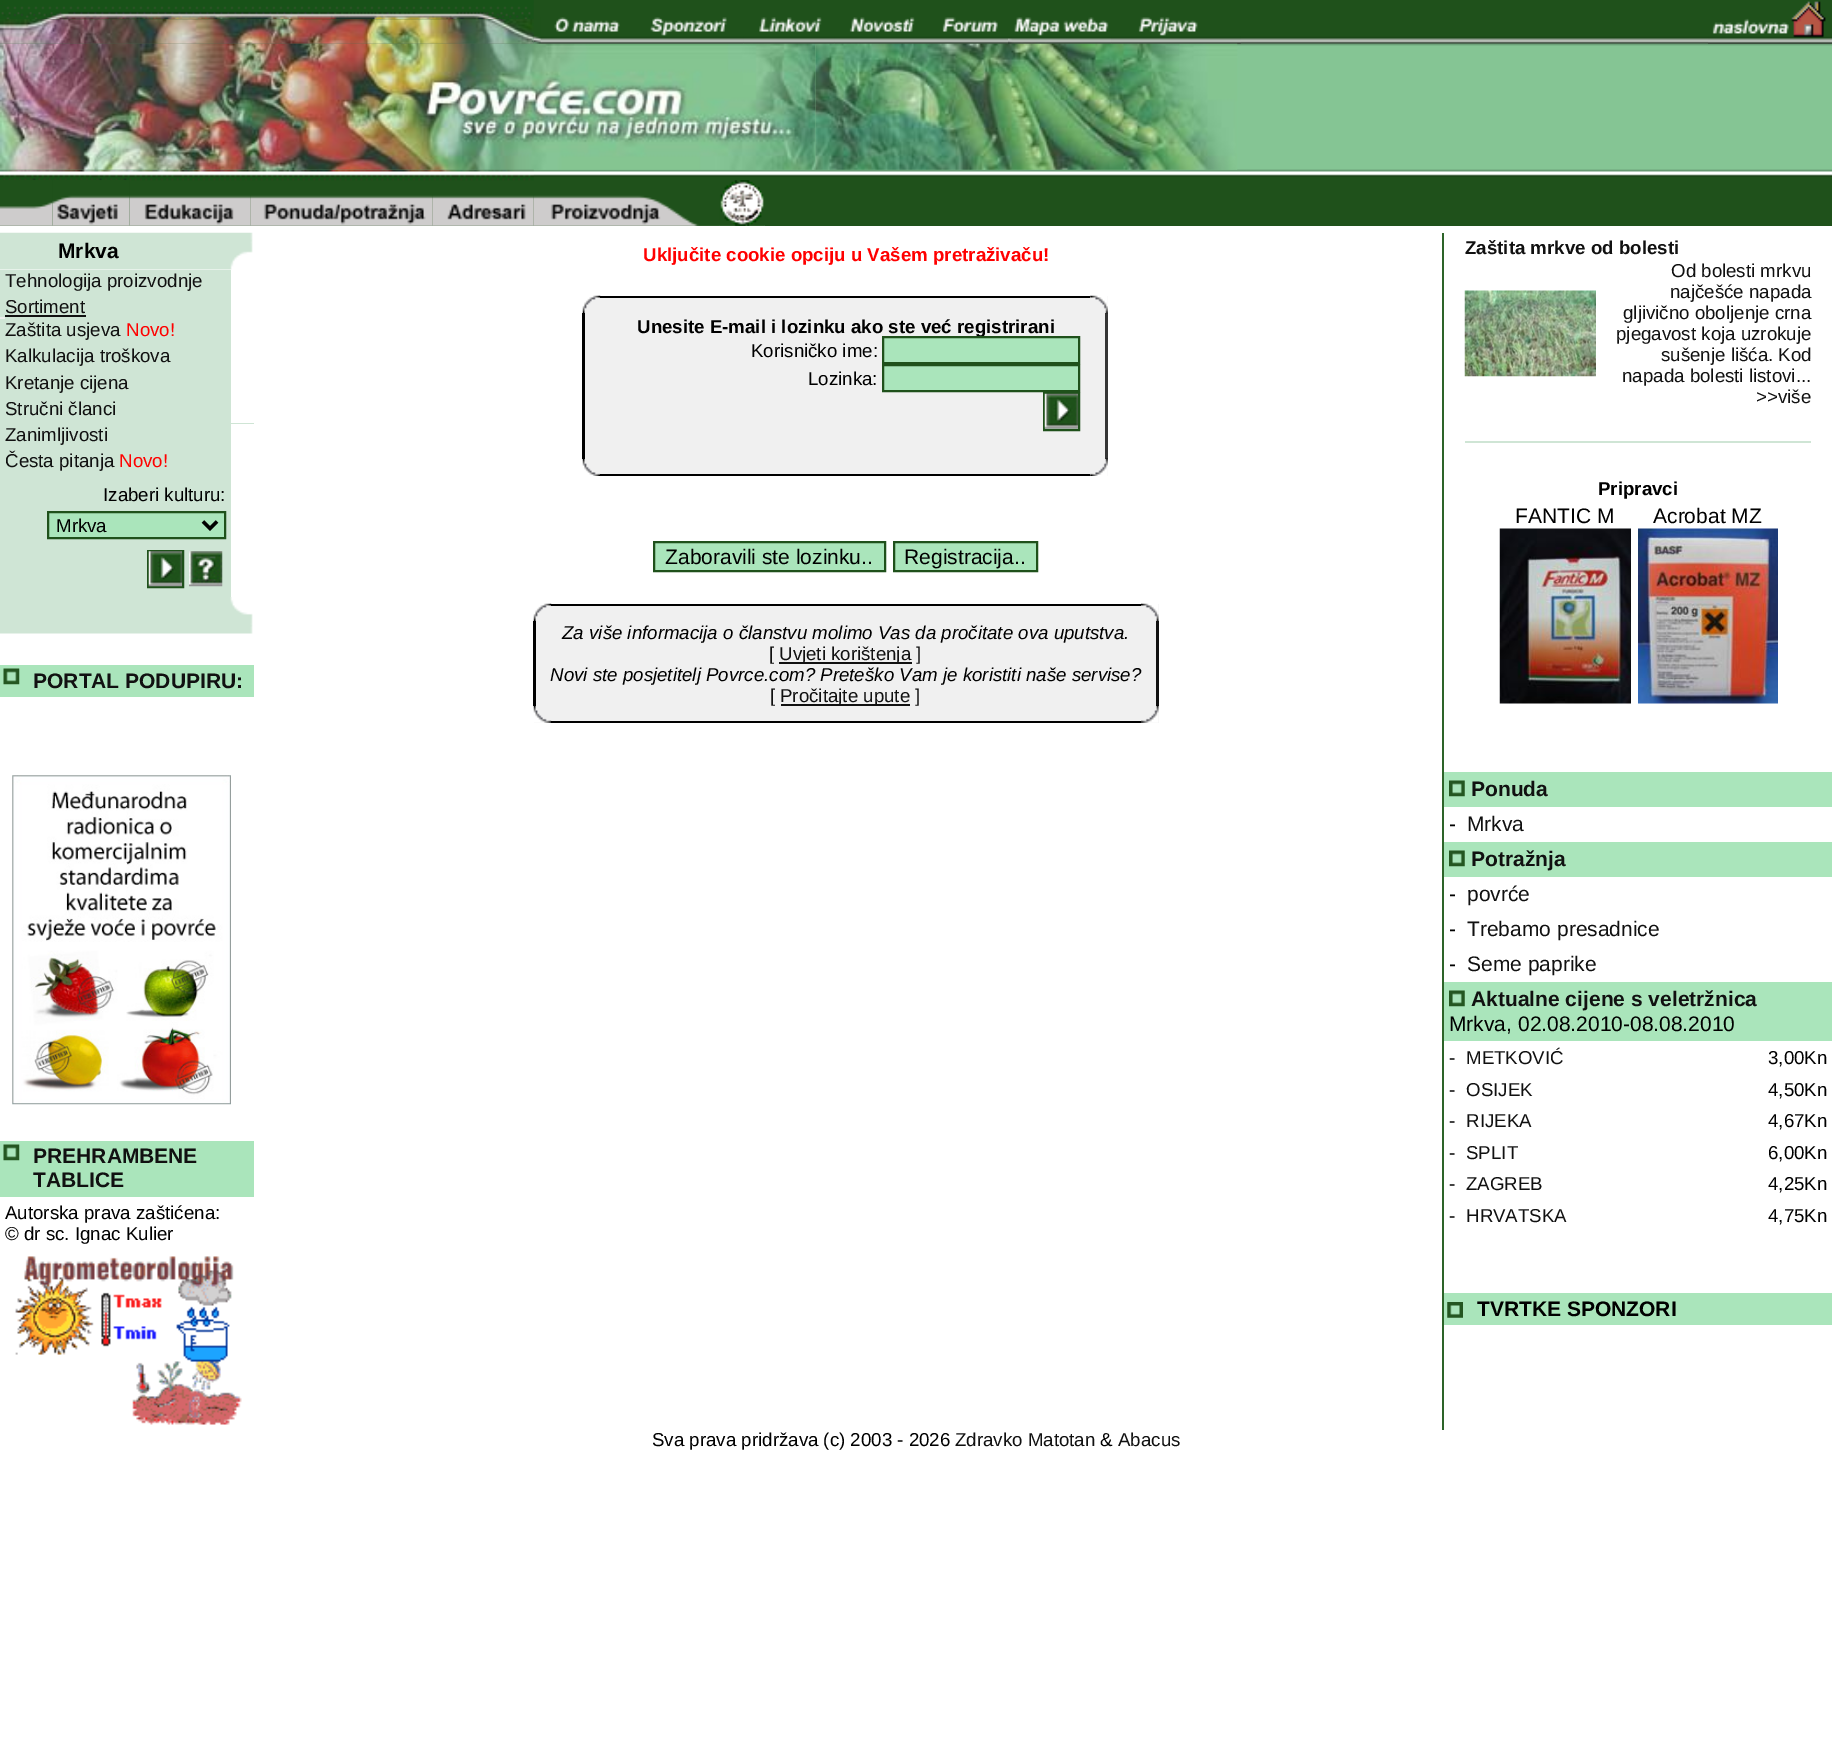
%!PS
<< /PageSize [1832 1756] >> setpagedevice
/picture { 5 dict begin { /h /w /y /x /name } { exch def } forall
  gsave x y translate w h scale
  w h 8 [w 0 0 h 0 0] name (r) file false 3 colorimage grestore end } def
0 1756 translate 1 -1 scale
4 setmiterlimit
1 setgray
0 0 1832 1756 rectfill
(img1.rgb) 0 0 1832 226 picture
(img2.rgb) 0 0 534 20 picture
(img3.rgb) 0 19 534 25 picture
(img4.rgb) 533 36 8 8 picture
(img5.rgb) 540 17 97 27 picture
(img6.rgb) 637 17 107 27 picture
(img7.rgb) 744 17 91 27 picture
(img8.rgb) 835 17 96 27 picture
(img9.rgb) 931 17 77 27 picture
(img10.rgb) 1008 17 104 27 picture
(img11.rgb) 1111 17 130 27 picture
(img12.rgb) 1708 1 124 43 picture
(img13.rgb) 0 43 816 127 picture
(img14.rgb) 815 43 423 127 picture
(img15.rgb) 0 169 534 12 picture
(img16.rgb) 0 180 53 46 picture
(img17.rgb) 52 180 78 46 picture
(img18.rgb) 129 195 122 31 picture
(img19.rgb) 250 195 183 31 picture
(img20.rgb) 432 195 102 31 picture
(img22.rgb) 719 225 45 1 picture
(img21.rgb) 533 195 187 31 picture
(img23.rgb) 720 180 44 46 picture
0.122 0.318 0.106 setrgbcolor
765 225 1067 1 rectfill
0.192 0.376 0.184 setrgbcolor
764 225 1 1 rectfill
0.812 0.898 0.835 setrgbcolor
0 270 254 327 rectfill
(img24.rgb) 0 232 253 38 picture
/LiberationSans-Bold [21 0 0 -21 0 0] selectfont
0 setgray
58 258 moveto (Mrkva) show
/LiberationSans-Regular [18.7 0 0 -18.7 0 0] selectfont
0.067 setgray
5 287 moveto (Tehnologija proizvodnje) show
1 setgray
231 270 23 153 rectfill
0.067 setgray
5 313 moveto (Sortiment) show
5 315 81 2 rectfill
0.933 setgray
0 317 5 2 rectfill
0.067 setgray
5 336 moveto (Zaštita usjeva) show
1 0 0 setrgbcolor
126 336 moveto (Novo!) show
0.067 setgray
5 362 moveto (Kalkulacija troškova) show
5 389 moveto (Kretanje cijena) show
5 415 moveto (Stručni članci) show
5 441 moveto (Zanimljivosti) show
1 setgray
231 424 23 173 rectfill
0.067 setgray
5 467 moveto (Česta pitanja) show
1 0 0 setrgbcolor
119 467 moveto (Novo!) show
0 setgray
103 501 moveto (Izaberi kulturu:) show
0.667 0.898 0.733 setrgbcolor
newpath 48 512 moveto 225 512 lineto 225 538 lineto 48 538 lineto closepath gsave fill grestore
0.122 0.318 0.106 setrgbcolor
2 setlinewidth
stroke
0 setgray
3.5 setlinewidth
newpath 203 521.5 moveto 210 528.5 lineto 217 521.5 lineto stroke
56 532 moveto (Mrkva) show
0.122 0.318 0.106 setrgbcolor
2 setlinewidth
148 551 35 36 rectstroke
(img25.rgb) 148 551 34 36 picture
(img26.rgb) 189 551 34 36 picture
(img27.rgb) 0 597 253 37 picture
0.667 0.898 0.733 setrgbcolor
0 665 254 32 rectfill
(img28.rgb) 3 668 17 17 picture
/LiberationSans-Bold [21 0 0 -21 0 0] selectfont
0.067 setgray
33 688 moveto (PORTAL PODUPIRU:) show
(img29.rgb) 12 775 219 330 picture
0.667 0.898 0.733 setrgbcolor
0 1141 254 56 rectfill
(img28.rgb) 3 1144 17 17 picture
0.067 setgray
33 1163 moveto (PREHRAMBENE) show
33 1187 moveto (TABLICE) show
/LiberationSans-Regular [18.7 0 0 -18.7 0 0] selectfont
0 setgray
5 1219 moveto (Autorska prava zaštićena:) show
5 1240 moveto (© dr sc. Ignac Kulier) show
(img30.rgb) 15 1256 227 169 picture
/LiberationSans-Bold [18.7 0 0 -18.7 0 0] selectfont
1 0 0 setrgbcolor
643 261 moveto (Uključite cookie opciju u Vašem pretraživaču!) show
0.941 setgray
584 296 524 180 rectfill
0 setgray
600 296 490 2 rectfill
(img31.rgb) 582 295 19 18 picture
0.208 setgray
1105 313 3 146 rectfill
(img32.rgb) 1090 295 18 19 picture
0 setgray
582 313 3 146 rectfill
637 333 moveto (Unesite E-mail i lozinku ako ste već registrirani) show
/LiberationSans-Regular [18.7 0 0 -18.7 0 0] selectfont
751 357 moveto (Korisničko ime:) show
0.667 0.898 0.733 setrgbcolor
newpath 883 337 moveto 1079 337 lineto 1079 363 lineto 883 363 lineto closepath gsave fill grestore
0.122 0.318 0.106 setrgbcolor
stroke
0 setgray
808 385 moveto (Lozinka:) show
0.667 0.898 0.733 setrgbcolor
newpath 883 365 moveto 1079 365 lineto 1079 391 lineto 883 391 lineto closepath gsave fill grestore
0.122 0.318 0.106 setrgbcolor
stroke
1044 393 35 37 rectstroke
(img33.rgb) 1044 393 34 36 picture
(img34.rgb) 582 459 18 17 picture
0 setgray
600 474 490 2 rectfill
(img35.rgb) 1090 458 18 18 picture
0.667 0.898 0.733 setrgbcolor
newpath 654 542 moveto 885 542 lineto 885 571 lineto 654 571 lineto closepath gsave fill grestore
0.122 0.318 0.106 setrgbcolor
stroke
/LiberationSans-Regular [21 0 0 -21 0 0] selectfont
0 setgray
665 564 moveto (Zaboravili ste lozinku..) show
0.667 0.898 0.733 setrgbcolor
newpath 894 542 moveto 1037 542 lineto 1037 571 lineto 894 571 lineto closepath gsave fill grestore
0.122 0.318 0.106 setrgbcolor
stroke
0 setgray
904 564 moveto (Registracija..) show
0.941 setgray
534 604 625 119 rectfill
0 setgray
551 604 590 2 rectfill
(img36.rgb) 533 603 19 18 picture
(img37.rgb) 1141 603 18 18 picture
533 621 3 85 rectfill
/LiberationSans-Italic [18.7 0 0 -18.7 0 0] selectfont
562 639 moveto (Za više informacija o članstvu molimo Vas da pročitate ova uputstva.) show
/LiberationSans-Regular [18.7 0 0 -18.7 0 0] selectfont
0.067 setgray
769 660 moveto ([) show
779 662 133 2 rectfill
779 660 moveto (Uvjeti korištenja ]) show
/LiberationSans-Italic [18.7 0 0 -18.7 0 0] selectfont
0 setgray
550 681 moveto (Novi ste posjetitelj Povrce.com? Preteško Vam je koristiti naše servise?) show
/LiberationSans-Regular [18.7 0 0 -18.7 0 0] selectfont
0.067 setgray
770 702 moveto ([) show
781 704 129 2 rectfill
780 702 moveto (Pročitajte upute ]) show
1156 621 3 85 rectfill
0 setgray
551 721 590 2 rectfill
(img38.rgb) 533 706 19 17 picture
(img39.rgb) 1141 705 18 18 picture
0.176 0.392 0.161 setrgbcolor
1442 233 2 1197 rectfill
/LiberationSans-Bold [18.7 0 0 -18.7 0 0] selectfont
0.067 setgray
1465 254 moveto (Zaštita mrkve od bolesti) show
(img40.rgb) 1464 290 132 87 picture
/LiberationSans-Regular [18.7 0 0 -18.7 0 0] selectfont
1671 277 moveto (Od bolesti mrkvu) show
1670 298 moveto (najčešće napada) show
1623 319 moveto (gljivično oboljenje crna) show
1616 340 moveto (pjegavost koja uzrokuje) show
1661 361 moveto (sušenje lišća. Kod) show
1622 382 moveto (napada bolesti listovi...) show
1756 403 moveto (>>više) show
0.812 0.898 0.835 setrgbcolor
1465 441 346 2 rectfill
/LiberationSans-Bold [18.7 0 0 -18.7 0 0] selectfont
0 setgray
1598 495 moveto (Pripravci) show
/LiberationSans-Regular [21 0 0 -21 0 0] selectfont
1515 523 moveto (FANTIC M) show
(img41.rgb) 1499 528 132 176 picture
1653 523 moveto (Acrobat MZ) show
(img42.rgb) 1638 528 140 176 picture
0.667 0.898 0.733 setrgbcolor
1444 772 388 35 rectfill
(img43.rgb) 1449 780 16 17 picture
/LiberationSans-Bold [21 0 0 -21 0 0] selectfont
0.067 setgray
1471 796 moveto (Ponuda) show
/LiberationSans-Regular [21 0 0 -21 0 0] selectfont
0 setgray
1449 831 moveto (-) show
0.067 setgray
1467 831 moveto (Mrkva) show
0.667 0.898 0.733 setrgbcolor
1444 842 388 35 rectfill
(img43.rgb) 1449 850 16 17 picture
/LiberationSans-Bold [21 0 0 -21 0 0] selectfont
0.067 setgray
1471 866 moveto (Potražnja) show
/LiberationSans-Regular [21 0 0 -21 0 0] selectfont
0 setgray
1449 901 moveto (-) show
0.067 setgray
1467 901 moveto (povrće) show
0 setgray
1449 936 moveto (-) show
0.067 setgray
1467 936 moveto (Trebamo presadnice) show
0 setgray
1449 971 moveto (-) show
0.067 setgray
1467 971 moveto (Seme paprike) show
0.667 0.898 0.733 setrgbcolor
1444 982 388 59 rectfill
(img43.rgb) 1449 990 16 17 picture
/LiberationSans-Bold [21 0 0 -21 0 0] selectfont
0.067 setgray
1471 1006 moveto (Aktualne cijene s veletržnica) show
/LiberationSans-Regular [21 0 0 -21 0 0] selectfont
0 setgray
1449 1031 moveto (Mrkva, 02.08.2010-08.08.2010) show
/LiberationSans-Regular [18.7 0 0 -18.7 0 0] selectfont
1449 1064 moveto (-) show
0.067 setgray
1466 1064 moveto (METKOVIĆ) show
0 setgray
1768 1064 moveto (3,00Kn) show
1449 1096 moveto (-) show
0.067 setgray
1466 1096 moveto (OSIJEK) show
0 setgray
1768 1096 moveto (4,50Kn) show
1449 1127 moveto (-) show
0.067 setgray
1466 1127 moveto (RIJEKA) show
0 setgray
1768 1127 moveto (4,67Kn) show
1449 1159 moveto (-) show
0.067 setgray
1466 1159 moveto (SPLIT) show
0 setgray
1768 1159 moveto (6,00Kn) show
1449 1190 moveto (-) show
0.067 setgray
1466 1190 moveto (ZAGREB) show
0 setgray
1768 1190 moveto (4,25Kn) show
1449 1222 moveto (-) show
0.067 setgray
1466 1222 moveto (HRVATSKA) show
0 setgray
1768 1222 moveto (4,75Kn) show
0.667 0.898 0.733 setrgbcolor
1444 1293 388 32 rectfill
(img44.rgb) 1447 1302 16 16 picture
/LiberationSans-Bold [21 0 0 -21 0 0] selectfont
0 setgray
1477 1316 moveto (TVRTKE SPONZORI) show
/LiberationSans-Regular [18.7 0 0 -18.7 0 0] selectfont
652 1446 moveto (Sva prava pridržava \(c\) 2003 - 2026) show
0.067 setgray
955 1446 moveto (Zdravko Matotan) show
0 setgray
1100 1446 moveto (&) show
0.067 setgray
1118 1446 moveto (Abacus) show
showpage
